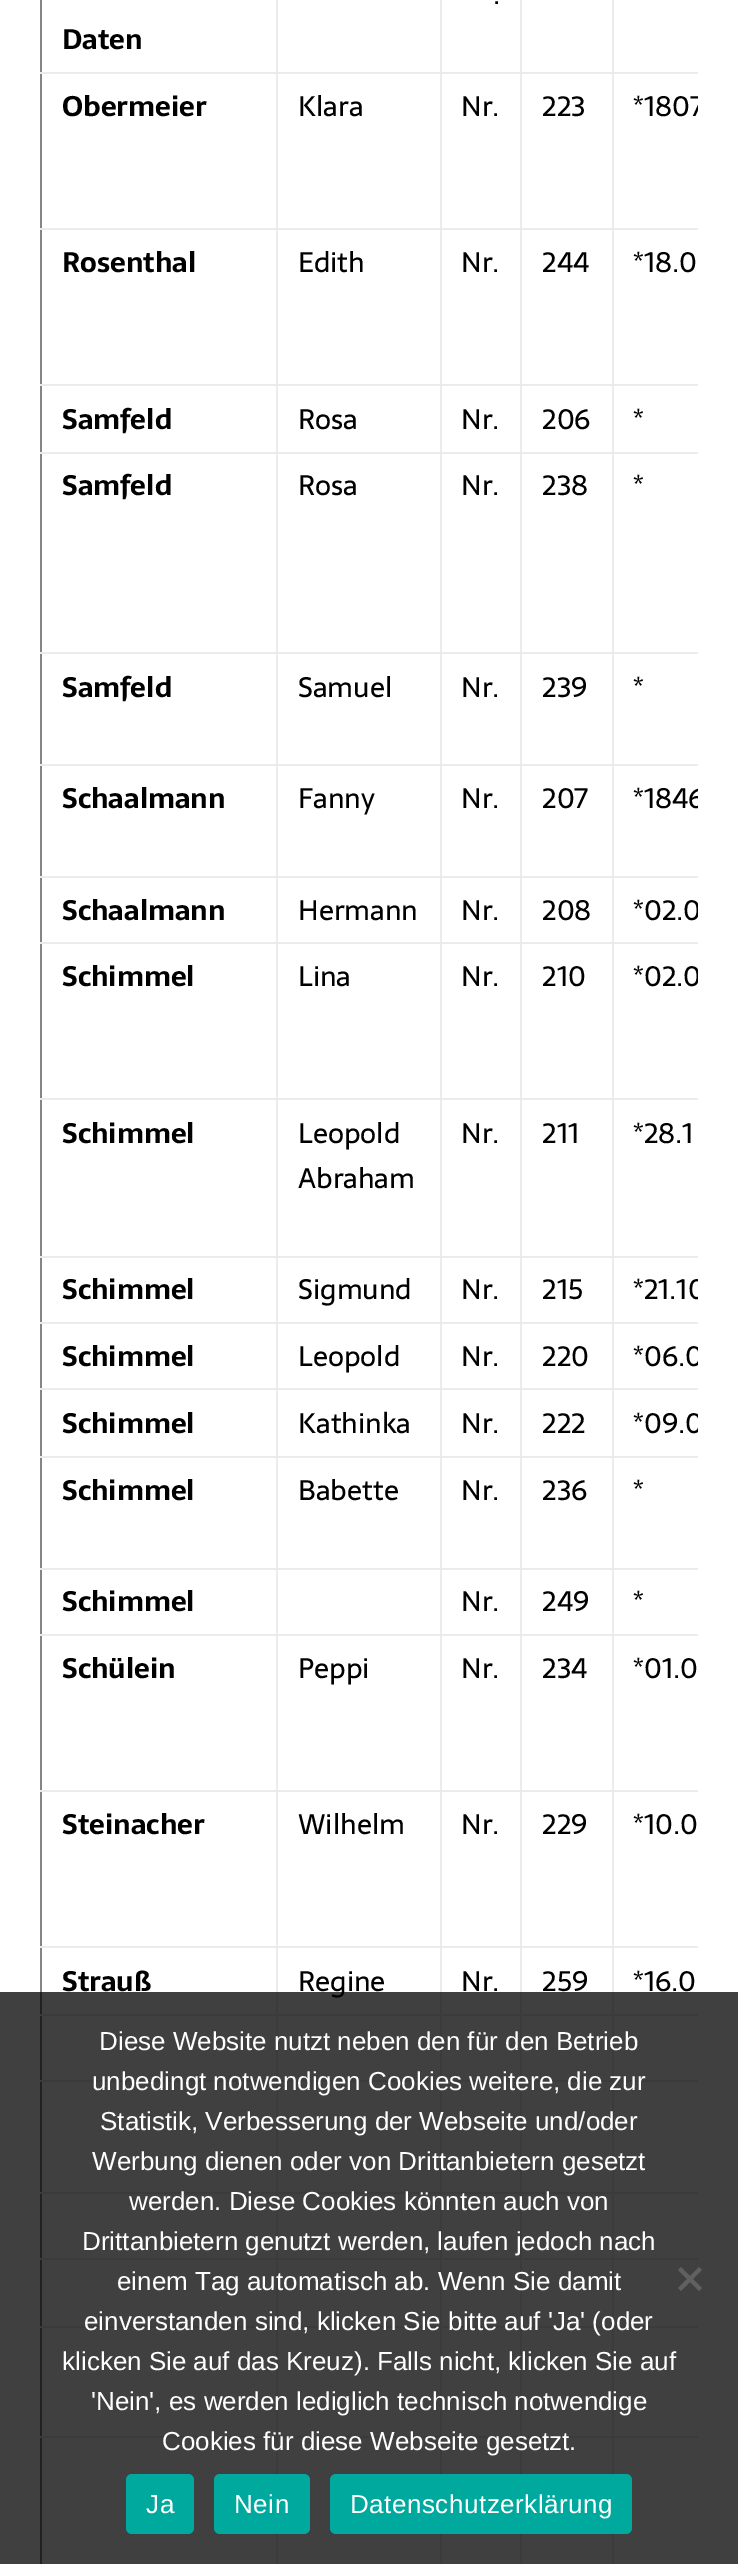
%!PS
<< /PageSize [738 2564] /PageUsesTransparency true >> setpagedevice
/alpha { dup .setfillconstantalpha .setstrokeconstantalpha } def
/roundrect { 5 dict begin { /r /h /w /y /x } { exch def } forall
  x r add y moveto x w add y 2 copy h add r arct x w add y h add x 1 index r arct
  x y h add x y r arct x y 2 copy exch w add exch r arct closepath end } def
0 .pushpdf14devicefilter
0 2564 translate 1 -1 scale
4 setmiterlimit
1 setgray
0 0 738 2564 rectfill
0.529 0.518 0.518 setrgbcolor
40 0 2 2564 rectfill
0.922 setgray
612 2436 2 128 rectfill
612 2436 86 2 rectfill
612 2326 2 112 rectfill
612 2326 86 2 rectfill
612 2258 2 70 rectfill
612 2258 86 2 rectfill
612 2192 2 68 rectfill
612 2192 86 2 rectfill
612 2080 2 114 rectfill
612 2080 86 2 rectfill
612 2014 2 68 rectfill
612 2014 86 2 rectfill
612 1946 2 70 rectfill
612 1946 86 2 rectfill
612 1790 2 158 rectfill
612 1790 86 2 rectfill
612 1634 2 158 rectfill
612 1634 86 2 rectfill
612 1568 2 68 rectfill
612 1568 86 2 rectfill
612 1456 2 114 rectfill
612 1456 86 2 rectfill
612 1388 2 70 rectfill
612 1388 86 2 rectfill
612 1322 2 68 rectfill
612 1322 86 2 rectfill
612 1256 2 68 rectfill
612 1256 86 2 rectfill
612 1098 2 160 rectfill
612 1098 86 2 rectfill
612 942 2 158 rectfill
612 942 86 2 rectfill
612 876 2 68 rectfill
612 876 86 2 rectfill
612 764 2 114 rectfill
612 764 86 2 rectfill
612 652 2 114 rectfill
612 652 86 2 rectfill
612 452 2 202 rectfill
612 452 86 2 rectfill
612 384 2 70 rectfill
612 384 86 2 rectfill
612 228 2 158 rectfill
612 228 86 2 rectfill
612 72 2 158 rectfill
612 72 86 2 rectfill
612 0 2 74 rectfill
520 2436 2 128 rectfill
520 2436 94 2 rectfill
520 2326 2 112 rectfill
520 2326 94 2 rectfill
520 2258 2 70 rectfill
520 2258 94 2 rectfill
520 2192 2 68 rectfill
520 2192 94 2 rectfill
520 2080 2 114 rectfill
520 2080 94 2 rectfill
520 2014 2 68 rectfill
520 2014 94 2 rectfill
520 1946 2 70 rectfill
520 1946 94 2 rectfill
520 1790 2 158 rectfill
520 1790 94 2 rectfill
520 1634 2 158 rectfill
520 1634 94 2 rectfill
520 1568 2 68 rectfill
520 1568 94 2 rectfill
520 1456 2 114 rectfill
520 1456 94 2 rectfill
520 1388 2 70 rectfill
520 1388 94 2 rectfill
520 1322 2 68 rectfill
520 1322 94 2 rectfill
520 1256 2 68 rectfill
520 1256 94 2 rectfill
520 1098 2 160 rectfill
520 1098 94 2 rectfill
520 942 2 158 rectfill
520 942 94 2 rectfill
520 876 2 68 rectfill
520 876 94 2 rectfill
520 764 2 114 rectfill
520 764 94 2 rectfill
520 652 2 114 rectfill
520 652 94 2 rectfill
520 452 2 202 rectfill
520 452 94 2 rectfill
520 384 2 70 rectfill
520 384 94 2 rectfill
520 228 2 158 rectfill
520 228 94 2 rectfill
520 72 2 158 rectfill
520 72 94 2 rectfill
520 0 2 74 rectfill
440 2436 2 128 rectfill
440 2436 82 2 rectfill
440 2326 2 112 rectfill
440 2326 82 2 rectfill
440 2258 2 70 rectfill
440 2258 82 2 rectfill
440 2192 2 68 rectfill
440 2192 82 2 rectfill
440 2080 2 114 rectfill
440 2080 82 2 rectfill
440 2014 2 68 rectfill
440 2014 82 2 rectfill
440 1946 2 70 rectfill
440 1946 82 2 rectfill
440 1790 2 158 rectfill
440 1790 82 2 rectfill
440 1634 2 158 rectfill
440 1634 82 2 rectfill
440 1568 2 68 rectfill
440 1568 82 2 rectfill
440 1456 2 114 rectfill
440 1456 82 2 rectfill
440 1388 2 70 rectfill
440 1388 82 2 rectfill
440 1322 2 68 rectfill
440 1322 82 2 rectfill
440 1256 2 68 rectfill
440 1256 82 2 rectfill
440 1098 2 160 rectfill
440 1098 82 2 rectfill
440 942 2 158 rectfill
440 942 82 2 rectfill
440 876 2 68 rectfill
440 876 82 2 rectfill
440 764 2 114 rectfill
440 764 82 2 rectfill
440 652 2 114 rectfill
440 652 82 2 rectfill
440 452 2 202 rectfill
440 452 82 2 rectfill
440 384 2 70 rectfill
440 384 82 2 rectfill
440 228 2 158 rectfill
440 228 82 2 rectfill
440 72 2 158 rectfill
440 72 82 2 rectfill
440 0 2 74 rectfill
276 2436 2 128 rectfill
276 2436 166 2 rectfill
276 2326 2 112 rectfill
276 2326 166 2 rectfill
276 2258 2 70 rectfill
276 2258 166 2 rectfill
276 2192 2 68 rectfill
276 2192 166 2 rectfill
276 2080 2 114 rectfill
276 2080 166 2 rectfill
276 2014 2 68 rectfill
276 2014 166 2 rectfill
276 1946 2 70 rectfill
276 1946 166 2 rectfill
276 1790 2 158 rectfill
276 1790 166 2 rectfill
276 1634 2 158 rectfill
276 1634 166 2 rectfill
276 1568 2 68 rectfill
276 1568 166 2 rectfill
276 1456 2 114 rectfill
276 1456 166 2 rectfill
276 1388 2 70 rectfill
276 1388 166 2 rectfill
276 1322 2 68 rectfill
276 1322 166 2 rectfill
276 1256 2 68 rectfill
276 1256 166 2 rectfill
276 1098 2 160 rectfill
276 1098 166 2 rectfill
276 942 2 158 rectfill
276 942 166 2 rectfill
276 876 2 68 rectfill
276 876 166 2 rectfill
276 764 2 114 rectfill
276 764 166 2 rectfill
276 652 2 114 rectfill
276 652 166 2 rectfill
276 452 2 202 rectfill
276 452 166 2 rectfill
276 384 2 70 rectfill
276 384 166 2 rectfill
276 228 2 158 rectfill
276 228 166 2 rectfill
276 72 2 158 rectfill
276 72 166 2 rectfill
/Sarala-Regular [28 0 0 -28 0 0] selectfont
0 setgray
493 4 moveto (.) show
0.922 setgray
276 0 2 74 rectfill
40 72 238 2 rectfill
/Sarala-Bold [28 0 0 -28 0 0] selectfont
0 setgray
62 49 moveto (Daten) show
0.922 setgray
40 228 238 2 rectfill
0 setgray
62 116 moveto (Obermeier) show
/Sarala-Regular [28 0 0 -28 0 0] selectfont
298 116 moveto (Klara) show
461 116 moveto (Nr.) show
542 116 moveto (223) show
gsave
40 0 658 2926 rectclip
633 116 moveto (*1807) show
grestore
0.922 setgray
40 384 238 2 rectfill
/Sarala-Bold [28 0 0 -28 0 0] selectfont
0 setgray
62 272 moveto (Rosenthal) show
/Sarala-Regular [28 0 0 -28 0 0] selectfont
298 272 moveto (Edith) show
461 272 moveto (Nr.) show
542 272 moveto (244) show
633 272 moveto (*18.0) show
0.922 setgray
40 452 238 2 rectfill
/Sarala-Bold [28 0 0 -28 0 0] selectfont
0 setgray
62 429 moveto (Samfeld) show
/Sarala-Regular [28 0 0 -28 0 0] selectfont
298 429 moveto (Rosa) show
461 429 moveto (Nr.) show
542 429 moveto (206) show
633 429 moveto (*) show
0.922 setgray
40 652 238 2 rectfill
/Sarala-Bold [28 0 0 -28 0 0] selectfont
0 setgray
62 495 moveto (Samfeld) show
/Sarala-Regular [28 0 0 -28 0 0] selectfont
298 495 moveto (Rosa) show
461 495 moveto (Nr.) show
542 495 moveto (238) show
633 495 moveto (*) show
0.922 setgray
40 764 238 2 rectfill
/Sarala-Bold [28 0 0 -28 0 0] selectfont
0 setgray
62 697 moveto (Samfeld) show
/Sarala-Regular [28 0 0 -28 0 0] selectfont
298 697 moveto (Samuel) show
461 697 moveto (Nr.) show
542 697 moveto (239) show
633 697 moveto (*) show
0.922 setgray
40 876 238 2 rectfill
/Sarala-Bold [28 0 0 -28 0 0] selectfont
0 setgray
62 808 moveto (Schaalmann) show
/Sarala-Regular [28 0 0 -28 0 0] selectfont
298 808 moveto (Fanny) show
461 808 moveto (Nr.) show
542 808 moveto (207) show
gsave
40 0 658 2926 rectclip
633 808 moveto (*1846) show
grestore
0.922 setgray
40 942 238 2 rectfill
/Sarala-Bold [28 0 0 -28 0 0] selectfont
0 setgray
62 920 moveto (Schaalmann) show
/Sarala-Regular [28 0 0 -28 0 0] selectfont
298 920 moveto (Hermann) show
461 920 moveto (Nr.) show
542 920 moveto (208) show
gsave
40 0 658 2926 rectclip
633 920 moveto (*02.0) show
grestore
0.922 setgray
40 1098 238 2 rectfill
/Sarala-Bold [28 0 0 -28 0 0] selectfont
0 setgray
62 986 moveto (Schimmel) show
/Sarala-Regular [28 0 0 -28 0 0] selectfont
298 986 moveto (Lina) show
461 986 moveto (Nr.) show
542 986 moveto (210) show
gsave
40 0 658 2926 rectclip
633 986 moveto (*02.0) show
grestore
0.922 setgray
40 1256 238 2 rectfill
/Sarala-Bold [28 0 0 -28 0 0] selectfont
0 setgray
62 1143 moveto (Schimmel) show
/Sarala-Regular [28 0 0 -28 0 0] selectfont
298 1143 moveto (Leopold) show
298 1188 moveto (Abraham) show
461 1143 moveto (Nr.) show
542 1143 moveto (211) show
633 1143 moveto (*28.1) show
0.922 setgray
40 1322 238 2 rectfill
/Sarala-Bold [28 0 0 -28 0 0] selectfont
0 setgray
62 1299 moveto (Schimmel) show
/Sarala-Regular [28 0 0 -28 0 0] selectfont
298 1299 moveto (Sigmund) show
461 1299 moveto (Nr.) show
542 1299 moveto (215) show
gsave
40 0 658 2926 rectclip
633 1299 moveto (*21.10) show
grestore
0.922 setgray
40 1388 238 2 rectfill
/Sarala-Bold [28 0 0 -28 0 0] selectfont
0 setgray
62 1366 moveto (Schimmel) show
/Sarala-Regular [28 0 0 -28 0 0] selectfont
298 1366 moveto (Leopold) show
461 1366 moveto (Nr.) show
542 1366 moveto (220) show
gsave
40 0 658 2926 rectclip
633 1366 moveto (*06.0) show
grestore
0.922 setgray
40 1456 238 2 rectfill
/Sarala-Bold [28 0 0 -28 0 0] selectfont
0 setgray
62 1433 moveto (Schimmel) show
/Sarala-Regular [28 0 0 -28 0 0] selectfont
298 1433 moveto (Kathinka) show
461 1433 moveto (Nr.) show
542 1433 moveto (222) show
gsave
40 0 658 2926 rectclip
633 1433 moveto (*09.0) show
grestore
0.922 setgray
40 1568 238 2 rectfill
/Sarala-Bold [28 0 0 -28 0 0] selectfont
0 setgray
62 1500 moveto (Schimmel) show
/Sarala-Regular [28 0 0 -28 0 0] selectfont
298 1500 moveto (Babette) show
461 1500 moveto (Nr.) show
542 1500 moveto (236) show
633 1500 moveto (*) show
0.922 setgray
40 1634 238 2 rectfill
/Sarala-Bold [28 0 0 -28 0 0] selectfont
0 setgray
62 1611 moveto (Schimmel) show
/Sarala-Regular [28 0 0 -28 0 0] selectfont
461 1611 moveto (Nr.) show
542 1611 moveto (249) show
633 1611 moveto (*) show
0.922 setgray
40 1790 238 2 rectfill
/Sarala-Bold [28 0 0 -28 0 0] selectfont
0 setgray
62 1678 moveto (Schülein) show
/Sarala-Regular [28 0 0 -28 0 0] selectfont
298 1678 moveto (Peppi) show
461 1678 moveto (Nr.) show
542 1678 moveto (234) show
633 1678 moveto (*01.0) show
0.922 setgray
40 1946 238 2 rectfill
/Sarala-Bold [28 0 0 -28 0 0] selectfont
0 setgray
62 1834 moveto (Steinacher) show
/Sarala-Regular [28 0 0 -28 0 0] selectfont
298 1834 moveto (Wilhelm) show
461 1834 moveto (Nr.) show
542 1834 moveto (229) show
633 1834 moveto (*10.0) show
0.922 setgray
40 2014 238 2 rectfill
/Sarala-Bold [28 0 0 -28 0 0] selectfont
0 setgray
62 1991 moveto (Strauß) show
/Sarala-Regular [28 0 0 -28 0 0] selectfont
298 1991 moveto (Regine) show
461 1991 moveto (Nr.) show
542 1991 moveto (259) show
633 1991 moveto (*16.0) show
0.922 setgray
40 2080 238 2 rectfill
40 2192 238 2 rectfill
40 2258 238 2 rectfill
40 2326 238 2 rectfill
40 2436 238 2 rectfill
0.75 alpha
0 setgray
0 1992 738 572 rectfill
/LiberationSans-Regular [26 0 0 -26 0 0] selectfont
1 alpha
1 setgray
99 2050 moveto (Diese Website nutzt neben den für den Betrieb) show
92 2090 moveto (unbedingt notwendigen Cookies weitere, die zur) show
100 2130 moveto (Statistik, Verbesserung der Webseite und/oder) show
92 2170 moveto (Werbung dienen oder von Drittanbietern gesetzt) show
129 2210 moveto (werden. Diese Cookies könnten auch von) show
82 2250 moveto (Drittanbietern genutzt werden, laufen jedoch nach) show
117 2290 moveto (einem Tag automatisch ab. Wenn Sie damit) show
84 2330 moveto (einverstanden sind, klicken Sie bitte auf 'Ja' \(oder) show
62 2370 moveto (klicken Sie auf das Kreuz\). Falls nicht, klicken Sie auf) show
91 2410 moveto ('Nein', es werden lediglich technisch notwendige) show
162 2450 moveto (Cookies für diese Webseite gesetzt.) show
0.376 setgray
newpath 699 2267 moveto 702 2270 lineto 681 2291 lineto 678 2288 lineto closepath fill
newpath 678 2270 moveto 681 2267 lineto 702 2288 lineto 699 2291 lineto closepath fill
0 0.663 0.616 setrgbcolor
126 2474 68 60 6 roundrect fill
1 setgray
146 2513 moveto 0.5 0 (Ja) ashow
0 0.663 0.616 setrgbcolor
214 2474 96 60 6 roundrect fill
1 setgray
234 2513 moveto 0.5 0 (Nein) ashow
0 0.663 0.616 setrgbcolor
330 2474 302 60 6 roundrect fill
1 setgray
350 2513 moveto 0.5 0 (Datenschutzerklärung) ashow
.poppdf14devicefilter showpage
